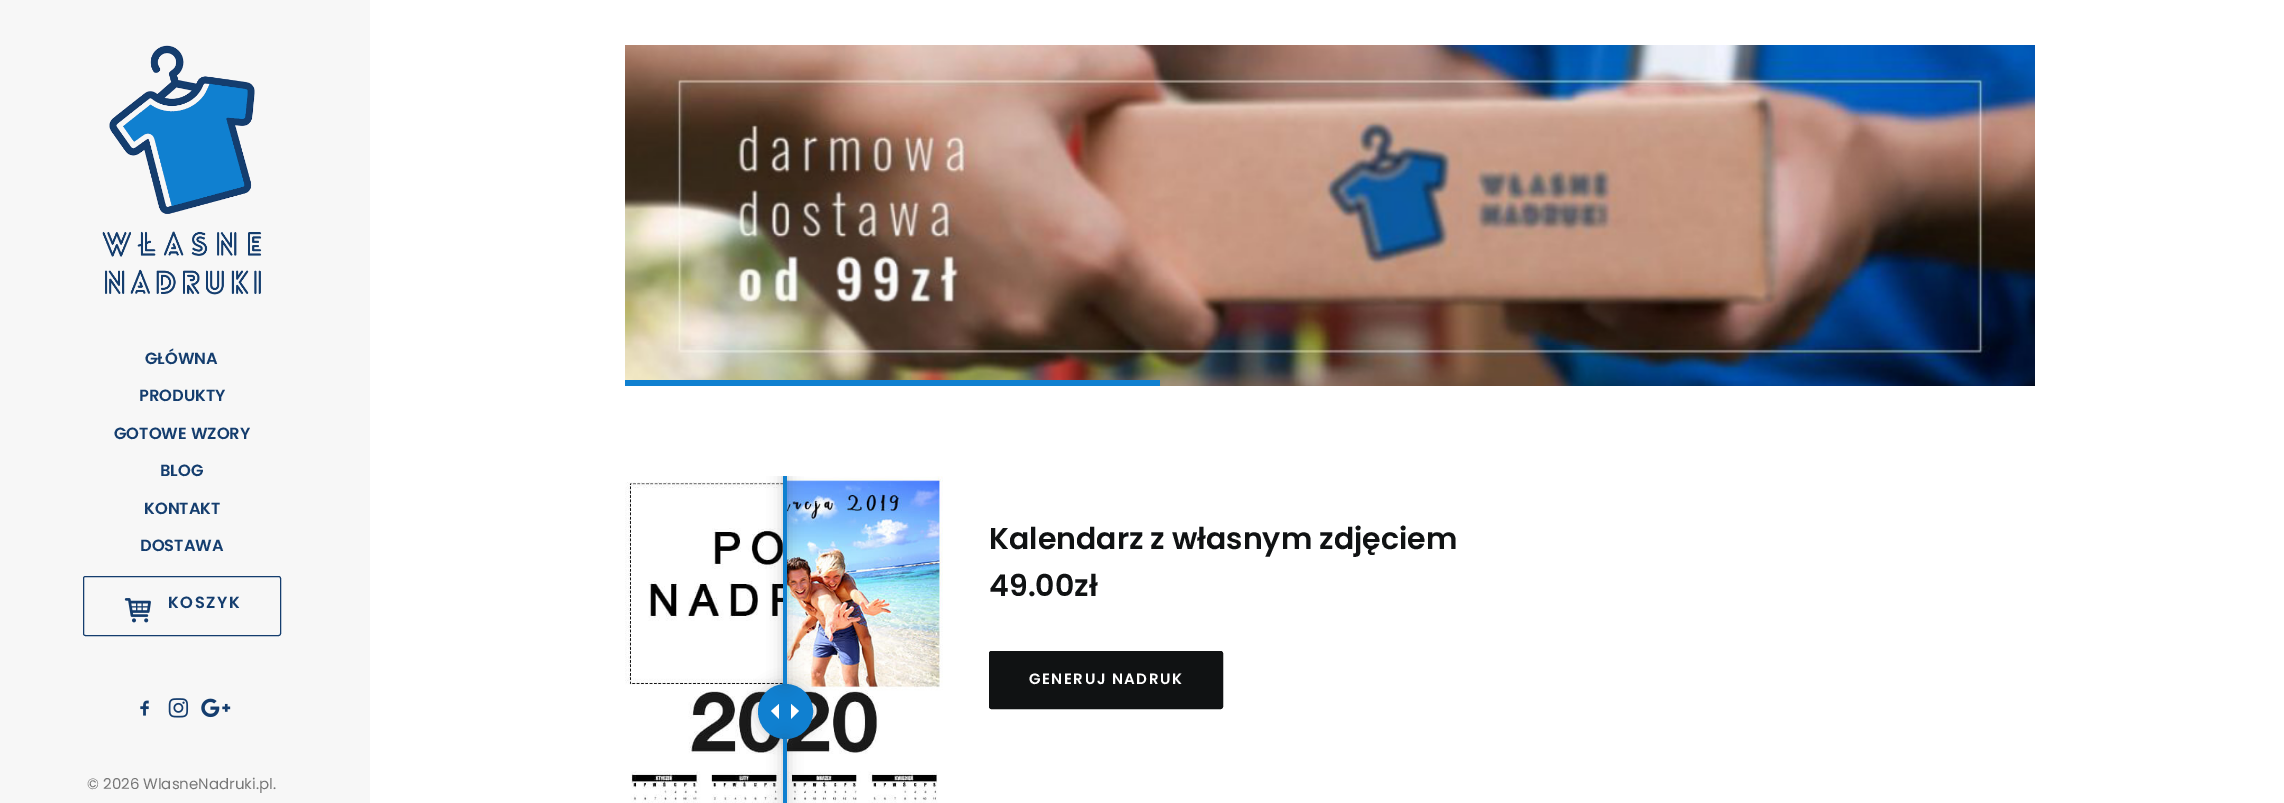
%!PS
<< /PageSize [2284 803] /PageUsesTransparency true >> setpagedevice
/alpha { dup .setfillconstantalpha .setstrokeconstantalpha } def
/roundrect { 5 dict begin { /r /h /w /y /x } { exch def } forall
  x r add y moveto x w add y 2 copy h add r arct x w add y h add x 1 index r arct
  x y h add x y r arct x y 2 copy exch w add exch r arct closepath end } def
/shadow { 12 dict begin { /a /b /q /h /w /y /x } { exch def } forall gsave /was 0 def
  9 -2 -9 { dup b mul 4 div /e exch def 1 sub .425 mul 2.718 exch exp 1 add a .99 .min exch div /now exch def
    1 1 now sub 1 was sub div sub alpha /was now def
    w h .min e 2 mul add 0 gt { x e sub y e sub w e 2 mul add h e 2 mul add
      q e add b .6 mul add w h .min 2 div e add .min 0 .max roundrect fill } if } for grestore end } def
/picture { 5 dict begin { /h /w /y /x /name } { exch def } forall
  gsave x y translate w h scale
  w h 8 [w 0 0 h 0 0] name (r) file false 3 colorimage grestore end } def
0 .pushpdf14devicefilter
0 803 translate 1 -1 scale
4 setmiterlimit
0.969 setgray
0 0 2284 803 rectfill
(img1.rgb) 102 45 160 250 picture
/Poppins-SemiBold [16.25 0 0 -16.25 0 0] selectfont
0.078 0.239 0.431 setrgbcolor
145 364 moveto (GŁÓWNA) show
139 401 moveto (PRODUKTY) show
114 439 moveto (GOTOWE WZORY) show
160 476 moveto (BLOG) show
144 514 moveto (KONTAKT) show
140 551 moveto (DOSTAWA) show
83.5 576.5 197 59 2 roundrect stroke
(img2.rgb) 124 598 27 25 picture
168 608 moveto 1.5 0 (KOSZYK) ashow
(img3.rgb) 140 700 9 16 picture
(img4.rgb) 168 698 21 20 picture
(img5.rgb) 201 698 30 20 picture
/Poppins-Regular [15 0 0 -15 0 0] selectfont
0.467 setgray
87 789 moveto (© 2026 WlasneNadruki.pl.) show
1 setgray
370 0 1914 803 rectfill
(img7.rgb) 625 482 160 321 picture
(img8.rgb) 786 476 157 327 picture
0.2 setgray
758 684 55 55 27.5 7.5 0.25 shadow
0.063 0.502 0.816 setrgbcolor
newpath 785.5 711.5 25.5 0 360 arc closepath gsave fill grestore
4 setlinewidth
stroke
1 setgray
newpath 779 704 moveto 779 719 lineto 771 711 lineto closepath 791 719 moveto 791 704 lineto 799 711 lineto closepath fill
gsave
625 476 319 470 rectclip
0.2 setgray
783 -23 4 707 0 7.5 0.25 shadow
grestore
(img6.rgb) 625 45 1410 341 picture
0.063 0.502 0.816 setrgbcolor
625 380 535 6 rectfill
783 476 4 208 rectfill
0.2 setgray
783 739 4 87 0 7.5 0.25 shadow
0.063 0.502 0.816 setrgbcolor
783 739 4 64 rectfill
/Poppins-SemiBold [30 0 0 -30 0 0] selectfont
0.063 0.071 0.075 setrgbcolor
989 549 moveto (Kalendarz z własnym zdjęciem) show
989 596 moveto (49.00zł) show
989.5 651.5 233 57 2 roundrect gsave fill grestore
1 setlinewidth
stroke
/Poppins-SemiBold [15 0 0 -15 0 0] selectfont
1 setgray
1029 684 moveto 1.5 0 (GENERUJ NADRUK) ashow
.poppdf14devicefilter showpage
